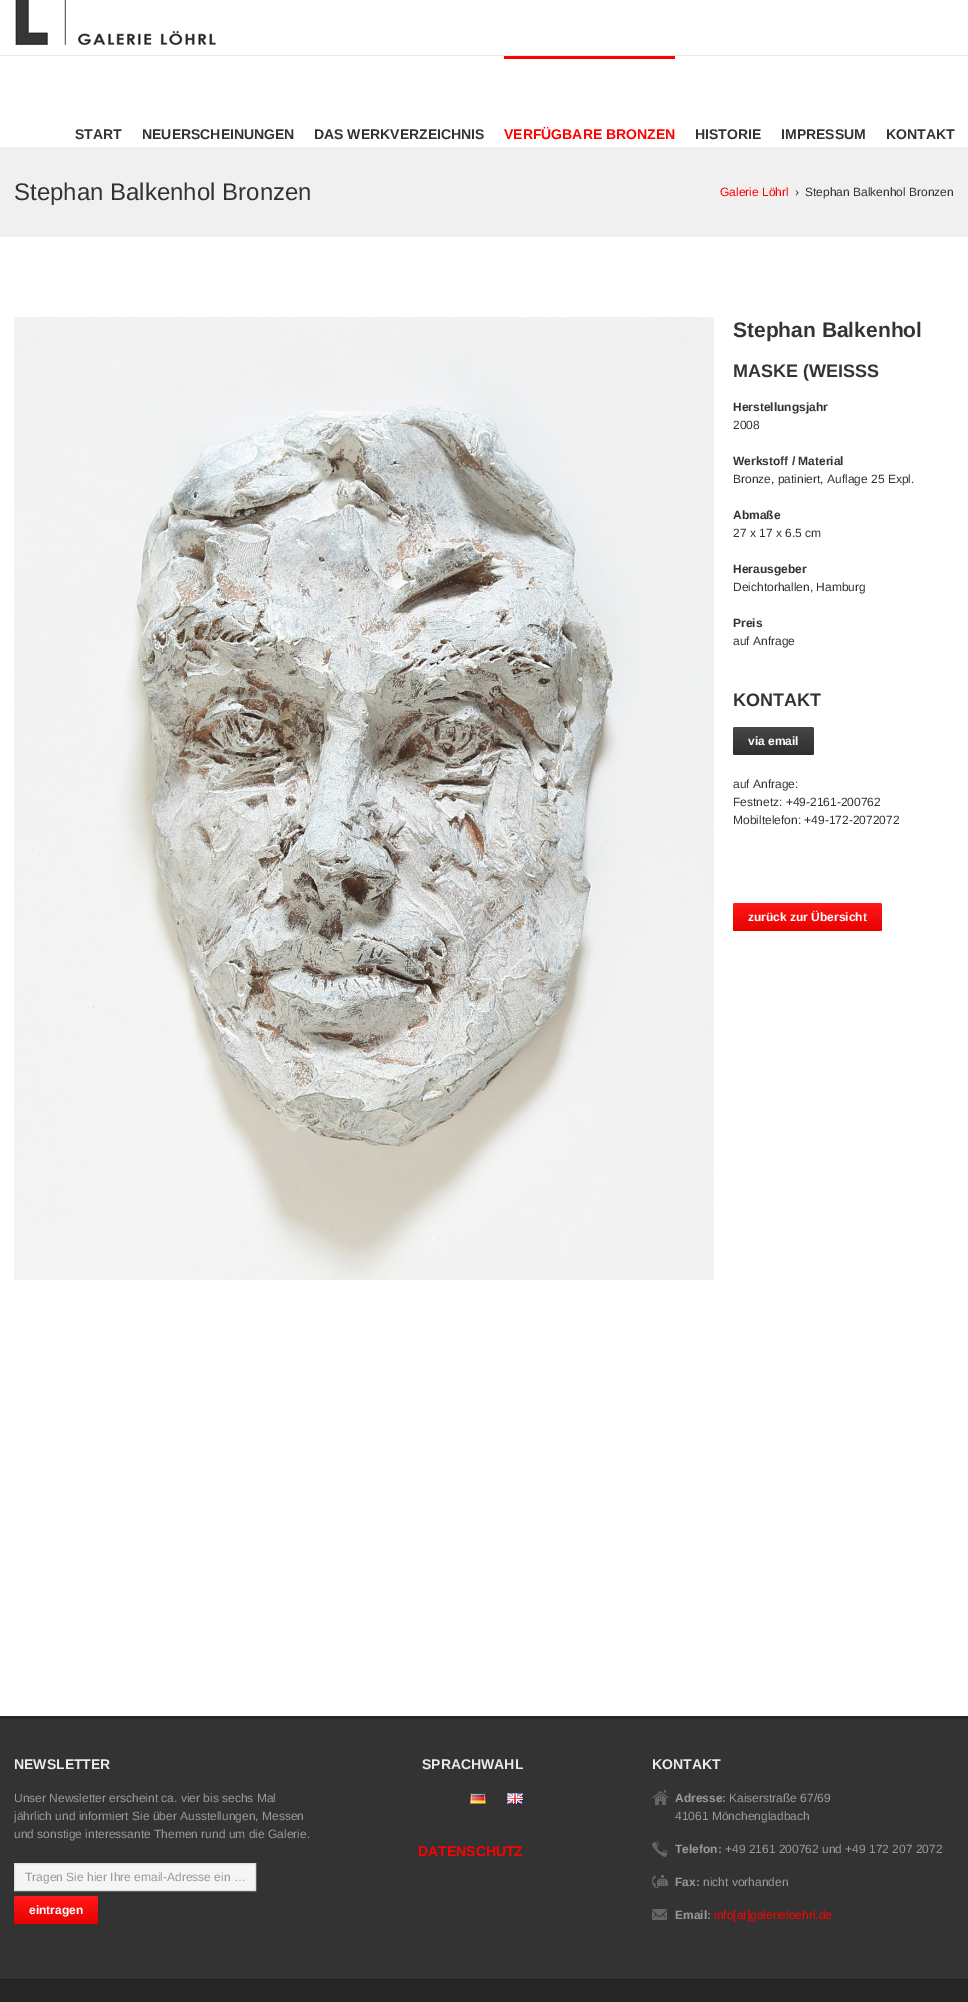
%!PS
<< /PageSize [968 2002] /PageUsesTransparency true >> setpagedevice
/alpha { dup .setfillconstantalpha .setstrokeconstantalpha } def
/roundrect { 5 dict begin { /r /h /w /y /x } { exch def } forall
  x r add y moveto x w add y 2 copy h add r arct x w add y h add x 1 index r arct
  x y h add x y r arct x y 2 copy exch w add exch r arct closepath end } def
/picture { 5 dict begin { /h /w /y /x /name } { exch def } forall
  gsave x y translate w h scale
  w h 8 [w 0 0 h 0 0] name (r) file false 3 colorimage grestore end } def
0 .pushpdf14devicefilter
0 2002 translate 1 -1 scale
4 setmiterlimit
1 setgray
0 0 968 2002 rectfill
(img1.rgb) 15 0 201 45 picture
0.922 setgray
0 55 968 1 rectfill
/LiberationSans-Bold [14 0 0 -14 0 0] selectfont
0.2 setgray
75 139 moveto (START) show
142 139 moveto (NEUERSCHEINUNGEN) show
314 139 moveto (DAS WERKVERZEICHNIS) show
1 0 0 setrgbcolor
504 56 171 3 rectfill
504 139 moveto (VERFÜGBARE BRONZEN) show
0.2 setgray
695 139 moveto (HISTORIE) show
781 139 moveto (IMPRESSUM) show
886 139 moveto (KONTAKT) show
0.941 setgray
0 147 968 90 rectfill
/LiberationSans-Regular [24 0 0 -24 0 0] selectfont
0.2 setgray
14 200 moveto (Stephan Balkenhol Bronzen) show
/LiberationSans-Regular [12 0 0 -12 0 0] selectfont
1 0 0 setrgbcolor
720 196 moveto (Galerie Löhrl) show
0.2 setgray
795 196 moveto (›) show
805 196 moveto (Stephan Balkenhol Bronzen) show
(img2.rgb) 14 317 700 963 picture
/LiberationSans-Bold [21 0 0 -21 0 0] selectfont
733 337 moveto (Stephan Balkenhol) show
/LiberationSans-Bold [18 0 0 -18 0 0] selectfont
733 377 moveto (MASKE \(WEISSS) show
/LiberationSans-Bold [12 0 0 -12 0 0] selectfont
733 411 moveto (Herstellungsjahr) show
/LiberationSans-Regular [12 0 0 -12 0 0] selectfont
733 429 moveto (2008) show
/LiberationSans-Bold [12 0 0 -12 0 0] selectfont
733 465 moveto (Werkstoff / Material) show
/LiberationSans-Regular [12 0 0 -12 0 0] selectfont
733 483 moveto (Bronze, patiniert, Auflage 25 Expl.) show
/LiberationSans-Bold [12 0 0 -12 0 0] selectfont
733 519 moveto (Abmaße) show
/LiberationSans-Regular [12 0 0 -12 0 0] selectfont
733 537 moveto (27 x 17 x 6.5 cm) show
/LiberationSans-Bold [12 0 0 -12 0 0] selectfont
733 573 moveto (Herausgeber) show
/LiberationSans-Regular [12 0 0 -12 0 0] selectfont
733 591 moveto (Deichtorhallen, Hamburg) show
/LiberationSans-Bold [12 0 0 -12 0 0] selectfont
733 627 moveto (Preis) show
/LiberationSans-Regular [12 0 0 -12 0 0] selectfont
733 645 moveto (auf Anfrage) show
/LiberationSans-Bold [18 0 0 -18 0 0] selectfont
733 706 moveto (KONTAKT) show
733 727 81 28 2 roundrect fill
0.1 alpha
gsave 733 727 81 28 2 roundrect clip newpath
<< /ShadingType 2 /ColorSpace /DeviceRGB /Coords [774 727 774 755] /Extend [true true] /Function << /FunctionType 2 /Domain [0 1] /C0 [1 1 1] /C1 [0 0 0] /N 1 >> >> shfill grestore
/LiberationSans-Bold [12 0 0 -12 0 0] selectfont
1 alpha
1 setgray
748 745 moveto (via email) show
/LiberationSans-Regular [12 0 0 -12 0 0] selectfont
0.2 setgray
733 788 moveto (auf Anfrage:) show
733 806 moveto (Festnetz: +49-2161-200762) show
733 824 moveto (Mobiltelefon: +49-172-2072072) show
1 0 0 setrgbcolor
733 903 149 28 2 roundrect fill
0.1 alpha
gsave 733 903 149 28 2 roundrect clip newpath
<< /ShadingType 2 /ColorSpace /DeviceRGB /Coords [808 903 808 931] /Extend [true true] /Function << /FunctionType 2 /Domain [0 1] /C0 [1 1 1] /C1 [0 0 0] /N 1 >> >> shfill grestore
/LiberationSans-Bold [12 0 0 -12 0 0] selectfont
1 alpha
1 setgray
748 921 moveto (zurück zur Übersicht) show
0.2 setgray
0 1719 968 260 rectfill
0.149 setgray
0 1716 968 3 rectfill
/LiberationSans-Bold [14 0 0 -14 0 0] selectfont
0.922 setgray
14 1769 moveto (NEWSLETTER) show
/LiberationSans-Regular [12 0 0 -12 0 0] selectfont
0.6 setgray
14 1802 moveto (Unser Newsletter erscheint ca. vier bis sechs Mal) show
14 1820 moveto (jährlich und informiert Sie über Ausstellungen, Messen) show
14 1838 moveto (und sonstige interessante Themen rund um die Galerie.) show
0.961 setgray
newpath 14.5 1863.5 moveto 255.5 1863.5 lineto 255.5 1890.5 lineto 14.5 1890.5 lineto closepath gsave fill grestore
0.878 setgray
stroke
0.6 setgray
25 1881 moveto (Tragen Sie hier Ihre email-Adresse ein …) show
1 0 0 setrgbcolor
14 1896 84 28 2 roundrect fill
0.1 alpha
gsave 14 1896 84 28 2 roundrect clip newpath
<< /ShadingType 2 /ColorSpace /DeviceRGB /Coords [56 1896 56 1924] /Extend [true true] /Function << /FunctionType 2 /Domain [0 1] /C0 [1 1 1] /C1 [0 0 0] /N 1 >> >> shfill grestore
/LiberationSans-Bold [12 0 0 -12 0 0] selectfont
1 alpha
1 setgray
29 1914 moveto (eintragen) show
/LiberationSans-Bold [14 0 0 -14 0 0] selectfont
0.922 setgray
422 1769 moveto (SPRACHWAHL) show
(img3.rgb) 470 1793 16 11 picture
(img4.rgb) 507 1793 16 11 picture
1 0 0 setrgbcolor
418 1856 moveto (DATENSCHUTZ) show
0.922 setgray
652 1769 moveto (KONTAKT) show
(img5.rgb) 652 1790 17 15 picture
/LiberationSans-Bold [12 0 0 -12 0 0] selectfont
0.6 setgray
675 1802 moveto (Adresse:) show
/LiberationSans-Regular [12 0 0 -12 0 0] selectfont
729 1802 moveto (Kaiserstraße 67/69) show
675 1820 moveto (41061 Mönchengladbach) show
(img6.rgb) 652 1841 16 16 picture
/LiberationSans-Bold [12 0 0 -12 0 0] selectfont
675 1853 moveto (Telefon:) show
/LiberationSans-Regular [12 0 0 -12 0 0] selectfont
725 1853 moveto (+49 2161 200762 und +49 172 207 2072) show
(img7.rgb) 652 1875 16 13 picture
/LiberationSans-Bold [12 0 0 -12 0 0] selectfont
675 1886 moveto (Fax:) show
/LiberationSans-Regular [12 0 0 -12 0 0] selectfont
703 1886 moveto (nicht vorhanden) show
(img8.rgb) 652 1909 15 11 picture
/LiberationSans-Bold [12 0 0 -12 0 0] selectfont
675 1919 moveto (Email:) show
/LiberationSans-Regular [12 0 0 -12 0 0] selectfont
1 0 0 setrgbcolor
714 1919 moveto (info[at]galerieloehrl.de) show
0.149 setgray
0 1980 968 22 rectfill
0.125 setgray
0 1979 968 1 rectfill
.poppdf14devicefilter showpage
